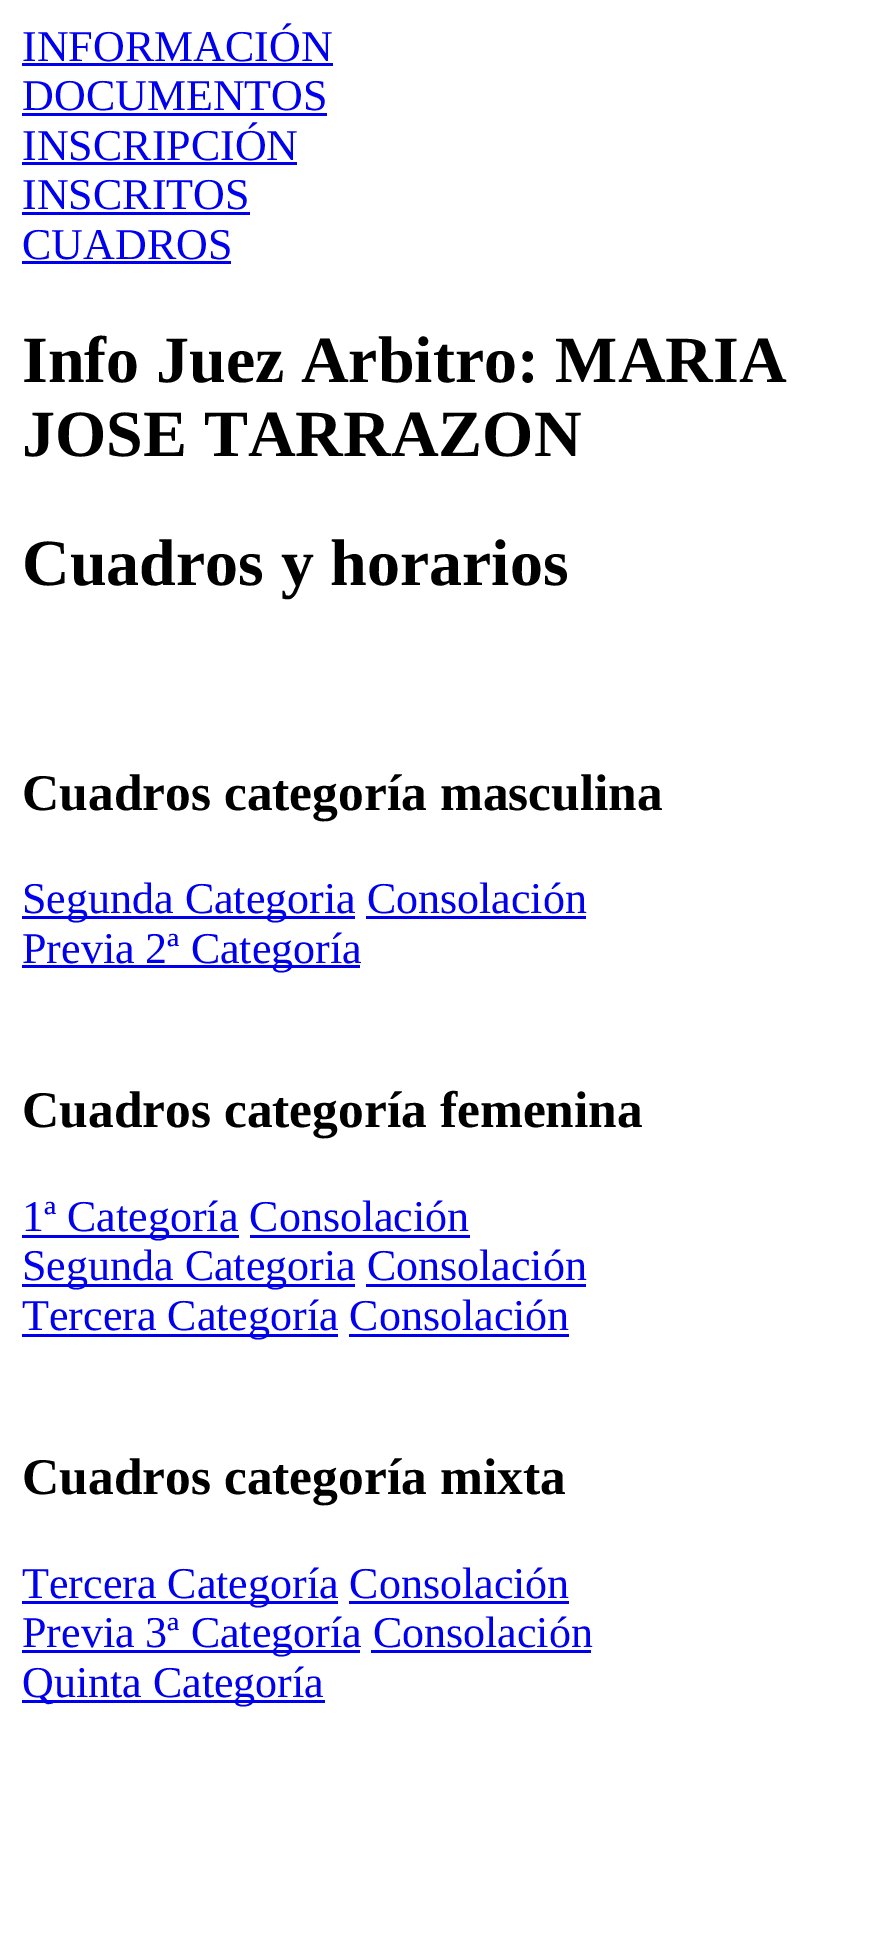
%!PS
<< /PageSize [877 1958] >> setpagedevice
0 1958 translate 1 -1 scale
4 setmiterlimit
1 setgray
0 0 877 1958 rectfill
/LiberationSerif-Regular [44 0 0 -44 0 0] selectfont
0 0 0.933 setrgbcolor
22 61 moveto (INFORMACIÓN) show
22 63 311 3 rectfill
22 110 moveto (DOCUMENTOS) show
22 113 305 3 rectfill
22 160 moveto (INSCRIPCIÓN) show
22 162 275 3 rectfill
22 209 moveto (INSCRITOS) show
22 212 228 3 rectfill
22 259 moveto (CUADROS) show
22 261 209 3 rectfill
/LiberationSerif-Bold [66 0 0 -66 0 0] selectfont
0 setgray
22 382 moveto (Info Juez Arbitro: MARIA) show
22 456 moveto (JOSE TARRAZON) show
22 585 moveto (Cuadros y horarios) show
/LiberationSerif-Bold [51.5 0 0 -51.5 0 0] selectfont
22 810 moveto (Cuadros categoría masculina) show
0 0 0.933 setrgbcolor
22 916 333 3 rectfill
/LiberationSerif-Regular [44 0 0 -44 0 0] selectfont
22 913 moveto (Segunda Categoria Consolación) show
366 916 220 3 rectfill
22 965 338 3 rectfill
22 963 moveto (Previa 2ª Categoría) show
/LiberationSerif-Bold [51.5 0 0 -51.5 0 0] selectfont
0 setgray
22 1127 moveto (Cuadros categoría femenina) show
0 0 0.933 setrgbcolor
22 1235 217 3 rectfill
/LiberationSerif-Regular [44 0 0 -44 0 0] selectfont
22 1231 moveto (1ª Categoría Consolación) show
250 1235 220 3 rectfill
22 1284 333 3 rectfill
22 1280 moveto (Segunda Categoria Consolación) show
366 1284 220 3 rectfill
22 1334 316 3 rectfill
22 1330 moveto (Tercera Categoría Consolación) show
349 1334 220 3 rectfill
/LiberationSerif-Bold [51.5 0 0 -51.5 0 0] selectfont
0 setgray
22 1494 moveto (Cuadros categoría mixta) show
0 0 0.933 setrgbcolor
22 1601 316 3 rectfill
/LiberationSerif-Regular [44 0 0 -44 0 0] selectfont
22 1598 moveto (Tercera Categoría Consolación) show
349 1601 220 3 rectfill
22 1650 338 3 rectfill
22 1647 moveto (Previa 3ª Categoría Consolación) show
371 1650 220 3 rectfill
22 1700 303 3 rectfill
22 1697 moveto (Quinta Categoría) show
showpage
